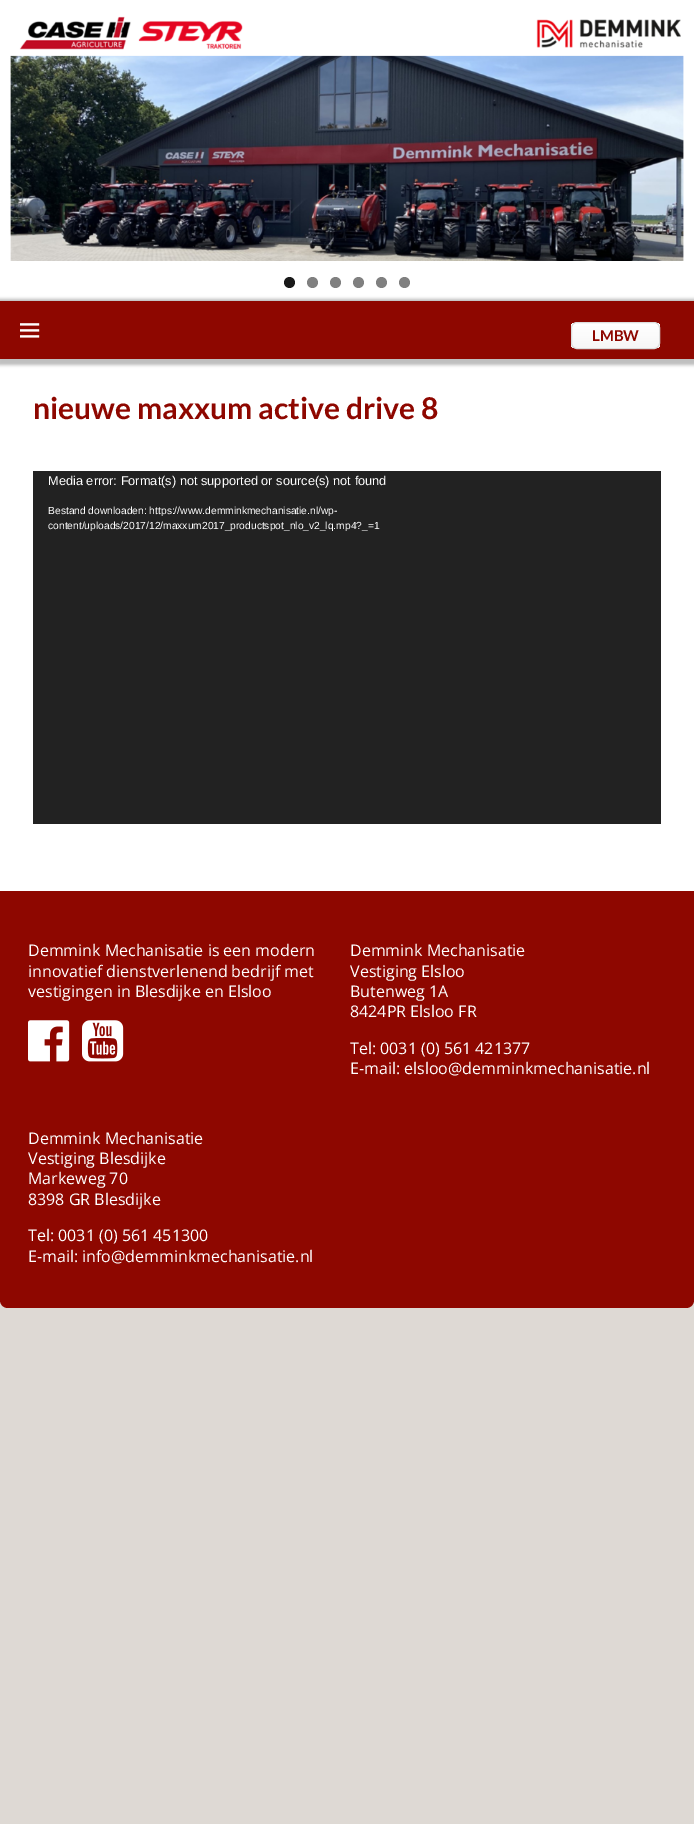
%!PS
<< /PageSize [694 1824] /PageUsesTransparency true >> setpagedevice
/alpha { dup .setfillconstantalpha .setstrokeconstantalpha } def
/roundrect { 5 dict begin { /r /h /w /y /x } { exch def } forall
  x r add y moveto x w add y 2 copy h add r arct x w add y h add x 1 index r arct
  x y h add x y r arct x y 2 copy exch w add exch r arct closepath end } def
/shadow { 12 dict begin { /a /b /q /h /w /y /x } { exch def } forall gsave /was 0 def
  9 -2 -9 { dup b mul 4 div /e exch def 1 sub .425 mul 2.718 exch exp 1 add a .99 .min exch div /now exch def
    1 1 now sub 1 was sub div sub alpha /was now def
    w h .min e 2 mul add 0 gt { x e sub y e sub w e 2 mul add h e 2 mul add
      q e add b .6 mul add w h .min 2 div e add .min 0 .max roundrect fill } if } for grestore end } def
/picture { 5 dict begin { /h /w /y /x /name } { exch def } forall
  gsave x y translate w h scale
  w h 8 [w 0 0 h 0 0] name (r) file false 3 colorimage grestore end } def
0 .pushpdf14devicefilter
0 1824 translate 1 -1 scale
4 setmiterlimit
0.871 0.851 0.831 setrgbcolor
0 0 694 1824 rectfill
1 setgray
0 0 694 301 rectfill
(img1.rgb) 10 16 674 245 picture
0.102 setgray
newpath 289.5 282.5 5.5 0 360 arc closepath fill
0.502 setgray
newpath 312.5 282.5 5.5 0 360 arc closepath fill
newpath 335.5 282.5 5.5 0 360 arc closepath fill
newpath 358.5 282.5 5.5 0 360 arc closepath fill
newpath 381.5 282.5 5.5 0 360 arc closepath fill
newpath 404.5 282.5 5.5 0 360 arc closepath fill
1 setgray
0 359 694 532 rectfill
0 setgray
-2 299 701 66 0 1.5 0.25 shadow
0.557 0.027 0 setrgbcolor
0 301 694 58 rectfill
(img2.rgb) 20 323 20 15 picture
gsave
571 322 89 27 6 roundrect clip newpath
gsave newpath 571 323 moveto 660 323 lineto 660 348 lineto 571 348 lineto closepath clip newpath
<< /ShadingType 2 /ColorSpace /DeviceRGB /Coords [616 323 616 348] /Extend [true true] /Function << /FunctionType 3 /Domain [0 1] /Functions [<< /FunctionType 2 /Domain [0 1] /C0 [1 1 1] /C1 [1 1 1] /N 1 >> << /FunctionType 2 /Domain [0 1] /C0 [1 1 1] /C1 [0.965 0.965 0.965] /N 1 >>] /Bounds [0.05] /Encode [0 1 0 1] >> >> shfill grestore
grestore
1 setgray
newpath 577 324 moveto 654 324 lineto 657 324 659 326 659 329 curveto 659 320 647 323 641 323 curveto 590 323 lineto 584 323 572 320 572 329 curveto 572 326 574 324 577 324 curveto closepath fill
0.863 setgray
571.5 322.5 88 26 5.5 roundrect stroke
/Lato-Bold [15 0 0 -15 0 0] selectfont
0.557 0.027 0 setrgbcolor
592 341 moveto (LMBW) show
/Lato-Bold [30 0 0 -30 0 0] selectfont
33 419 moveto (nieuwe maxxum active drive 8) show
0.133 setgray
33 471 628 353 rectfill
/LiberationSans-Regular [12.8 0 0 -12.8 0 0] selectfont
1 setgray
48 485 moveto (Media error: Format\(s\) not supported or source\(s\) not found) show
/LiberationSans-Regular [10.25 0 0 -10.25 0 0] selectfont
48 514 moveto (Bestand downloaden: https://www.demminkmechanisatie.nl/wp-) show
48 529 moveto (content/uploads/2017/12/maxxum2017_productspot_nlo_v2_lq.mp4?_=1) show
0.557 0.027 0 setrgbcolor
newpath 0 891 moveto 694 891 lineto 694 1300 lineto 694 1304.5 690.5 1308 686 1308 curveto 8 1308 lineto 3.5 1308 0 1304.5 0 1300 curveto closepath fill
/OpenSans-Regular [16 0 0 -16 0 0] selectfont
1 setgray
28 956 moveto (Demmink Mechanisatie is een modern) show
28 977 moveto (innovatief dienstverlenend bedrijf met) show
28 997 moveto (vestigingen in Blesdijke en Elsloo) show
(img3.rgb) 28 1020 42 42 picture
(img4.rgb) 82 1020 42 42 picture
350 956 moveto (Demmink Mechanisatie) show
350 977 moveto (Vestiging Elsloo) show
350 997 moveto (Butenweg 1A) show
350 1017 moveto (8424PR Elsloo FR) show
350 1054 moveto (Tel: 0031 \(0\) 561 421377) show
350 1074 moveto (E-mail: elsloo@demminkmechanisatie.nl) show
28 1144 moveto (Demmink Mechanisatie) show
28 1164 moveto (Vestiging Blesdijke) show
28 1184 moveto (Markeweg 70) show
28 1205 moveto (8398 GR Blesdijke) show
28 1241 moveto (Tel: 0031 \(0\) 561 451300) show
28 1262 moveto (E-mail: info@demminkmechanisatie.nl) show
.poppdf14devicefilter showpage
